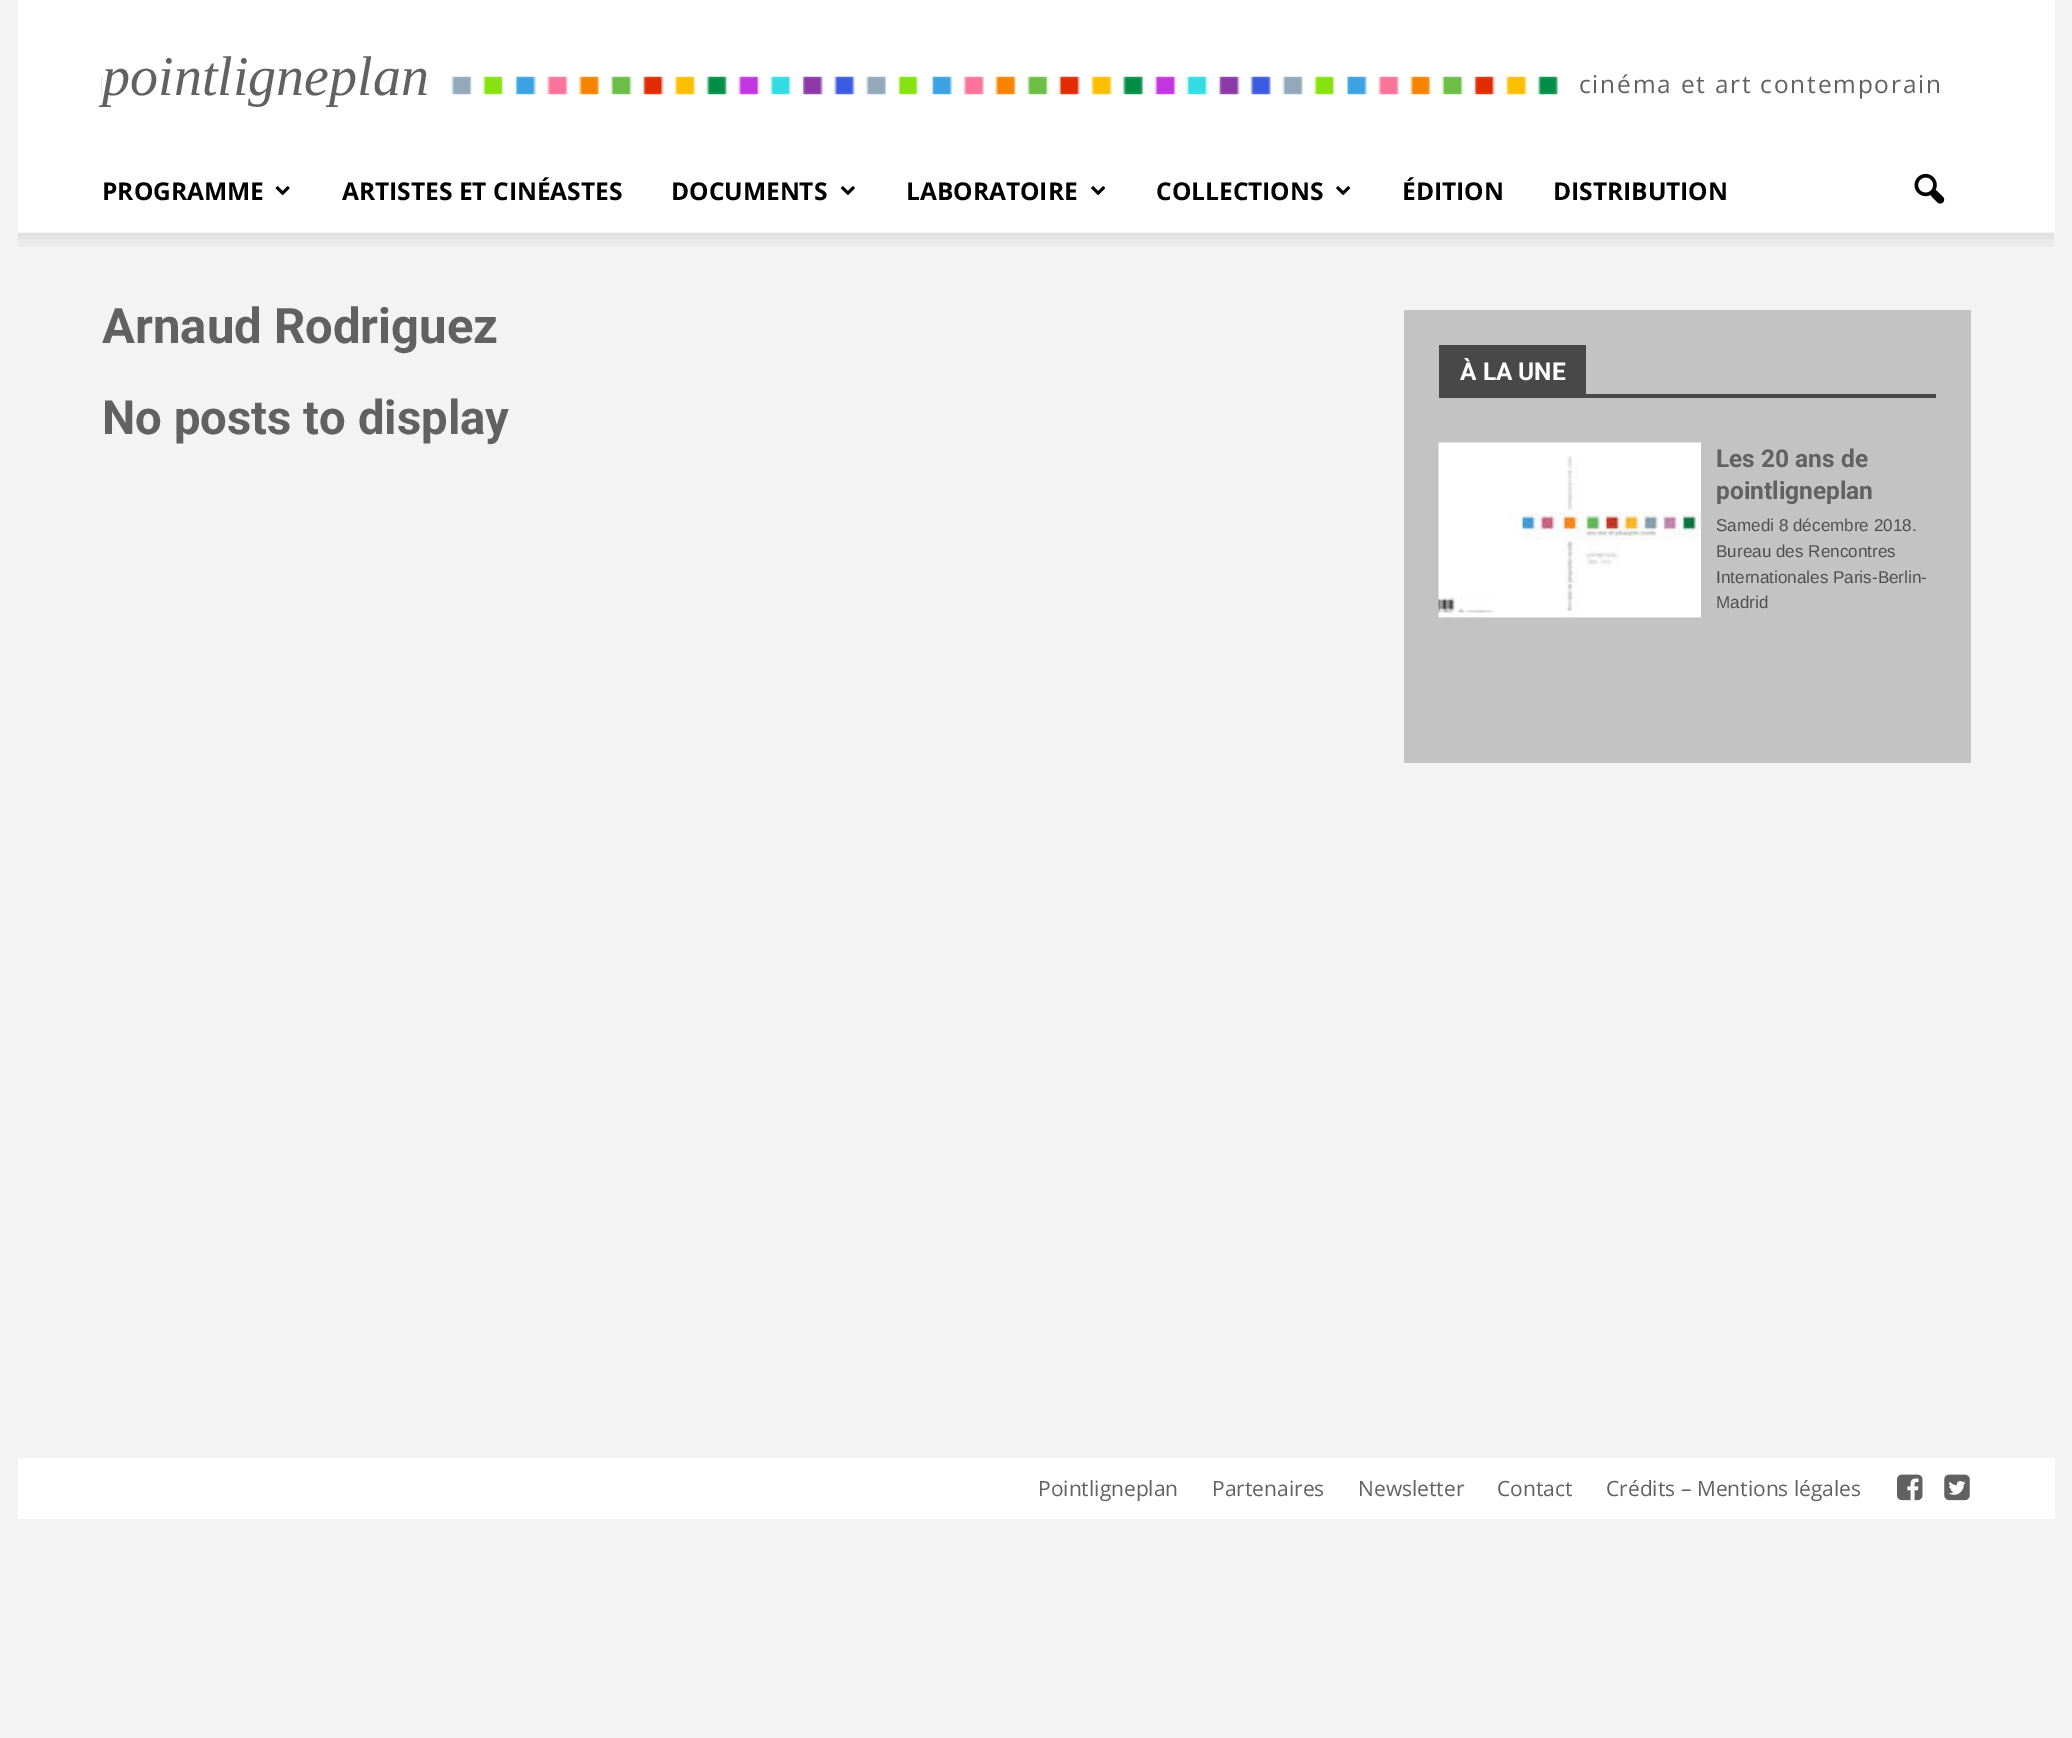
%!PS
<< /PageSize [2072 1738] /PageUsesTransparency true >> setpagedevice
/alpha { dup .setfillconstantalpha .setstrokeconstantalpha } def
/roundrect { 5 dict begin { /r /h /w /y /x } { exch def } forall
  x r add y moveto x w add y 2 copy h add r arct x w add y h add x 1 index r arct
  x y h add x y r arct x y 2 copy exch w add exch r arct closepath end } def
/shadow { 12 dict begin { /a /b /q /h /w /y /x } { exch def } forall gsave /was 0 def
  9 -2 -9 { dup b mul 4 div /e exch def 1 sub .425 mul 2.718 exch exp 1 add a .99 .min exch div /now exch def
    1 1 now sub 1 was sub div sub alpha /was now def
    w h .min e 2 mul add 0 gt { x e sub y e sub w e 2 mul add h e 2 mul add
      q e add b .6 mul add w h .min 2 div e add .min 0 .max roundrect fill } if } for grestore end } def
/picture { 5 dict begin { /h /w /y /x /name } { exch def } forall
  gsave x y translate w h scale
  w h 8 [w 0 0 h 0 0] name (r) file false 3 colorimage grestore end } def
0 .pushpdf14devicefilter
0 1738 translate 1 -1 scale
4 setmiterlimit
0.953 setgray
0 0 2072 1738 rectfill
1 setgray
18 0 2037 233 rectfill
(img1.rgb) 101 76 1457 19 picture
102 76 338 19 rectfill
/LiberationSerif-Italic [56 0 0 -56 0 0] selectfont
0.38 setgray
102 95 moveto (pointligneplan) show
/OpenSans-Regular [24.5 0 0 -24.5 0 0] selectfont
1579 93 moveto 1.75 0 (cinéma et art contemporain) ashow
/OpenSans-Bold [24.5 0 0 -24.5 0 0] selectfont
0 setgray
102 200 moveto (PROGRAMME) show
(img2.rgb) 275 186 15 10 picture
342 200 moveto (ARTISTES ET CINÉASTES) show
671 200 moveto (DOCUMENTS) show
(img3.rgb) 840 186 15 10 picture
906 200 moveto (LABORATOIRE) show
(img4.rgb) 1091 186 15 10 picture
1156 200 moveto (COLLECTIONS) show
(img4.rgb) 1336 186 15 10 picture
1402 200 moveto (ÉDITION) show
1553 200 moveto (DISTRIBUTION) show
(img5.rgb) 1914 173 31 31 picture
(img6.rgb) 18 232 2036 15 picture
/Roboto-Bold [49 0 0 -49 0 0] selectfont
0.38 setgray
102 343 moveto (Arnaud Rodriguez) show
/Roboto-Bold [47.25 0 0 -47.25 0 0] selectfont
102 434 moveto (No posts to display) show
0.769 0.765 0.769 setrgbcolor
1404 310 567 453 rectfill
0.282 setgray
1439 394 497 4 rectfill
1439 345 147 49 rectfill
/Roboto-Bold [24.5 0 0 -24.5 0 0] selectfont
1 setgray
1460 380 moveto (À LA UNE) show
gsave
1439 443 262 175 rectclip
0 setgray
1439 445 262 175 0 3.5 0.2 shadow
grestore
(img7.rgb) 1438 442 263 176 picture
0.38 setgray
1716 467 moveto (Les 20 ans de) show
1716 499 moveto (pointligneplan) show
/LiberationSans-Regular [17.1 0 0 -17.1 0 0] selectfont
0.306 setgray
1716 531 moveto (Samedi 8 décembre 2018.) show
1716 557 moveto (Bureau des Rencontres) show
1716 583 moveto (Internationales Paris-Berlin-) show
1716 608 moveto (Madrid) show
1 setgray
18 1458 2037 61 rectfill
/OpenSans-Regular [21 0 0 -21 0 0] selectfont
0.38 setgray
1038 1496 moveto (Pointligneplan) show
1212 1496 moveto (Partenaires) show
1358 1496 moveto (Newsletter) show
1497 1496 moveto (Contact) show
1606 1496 moveto (Crédits – Mentions légales) show
(img8.rgb) 1897 1474 26 27 picture
(img9.rgb) 1944 1474 26 27 picture
.poppdf14devicefilter showpage
